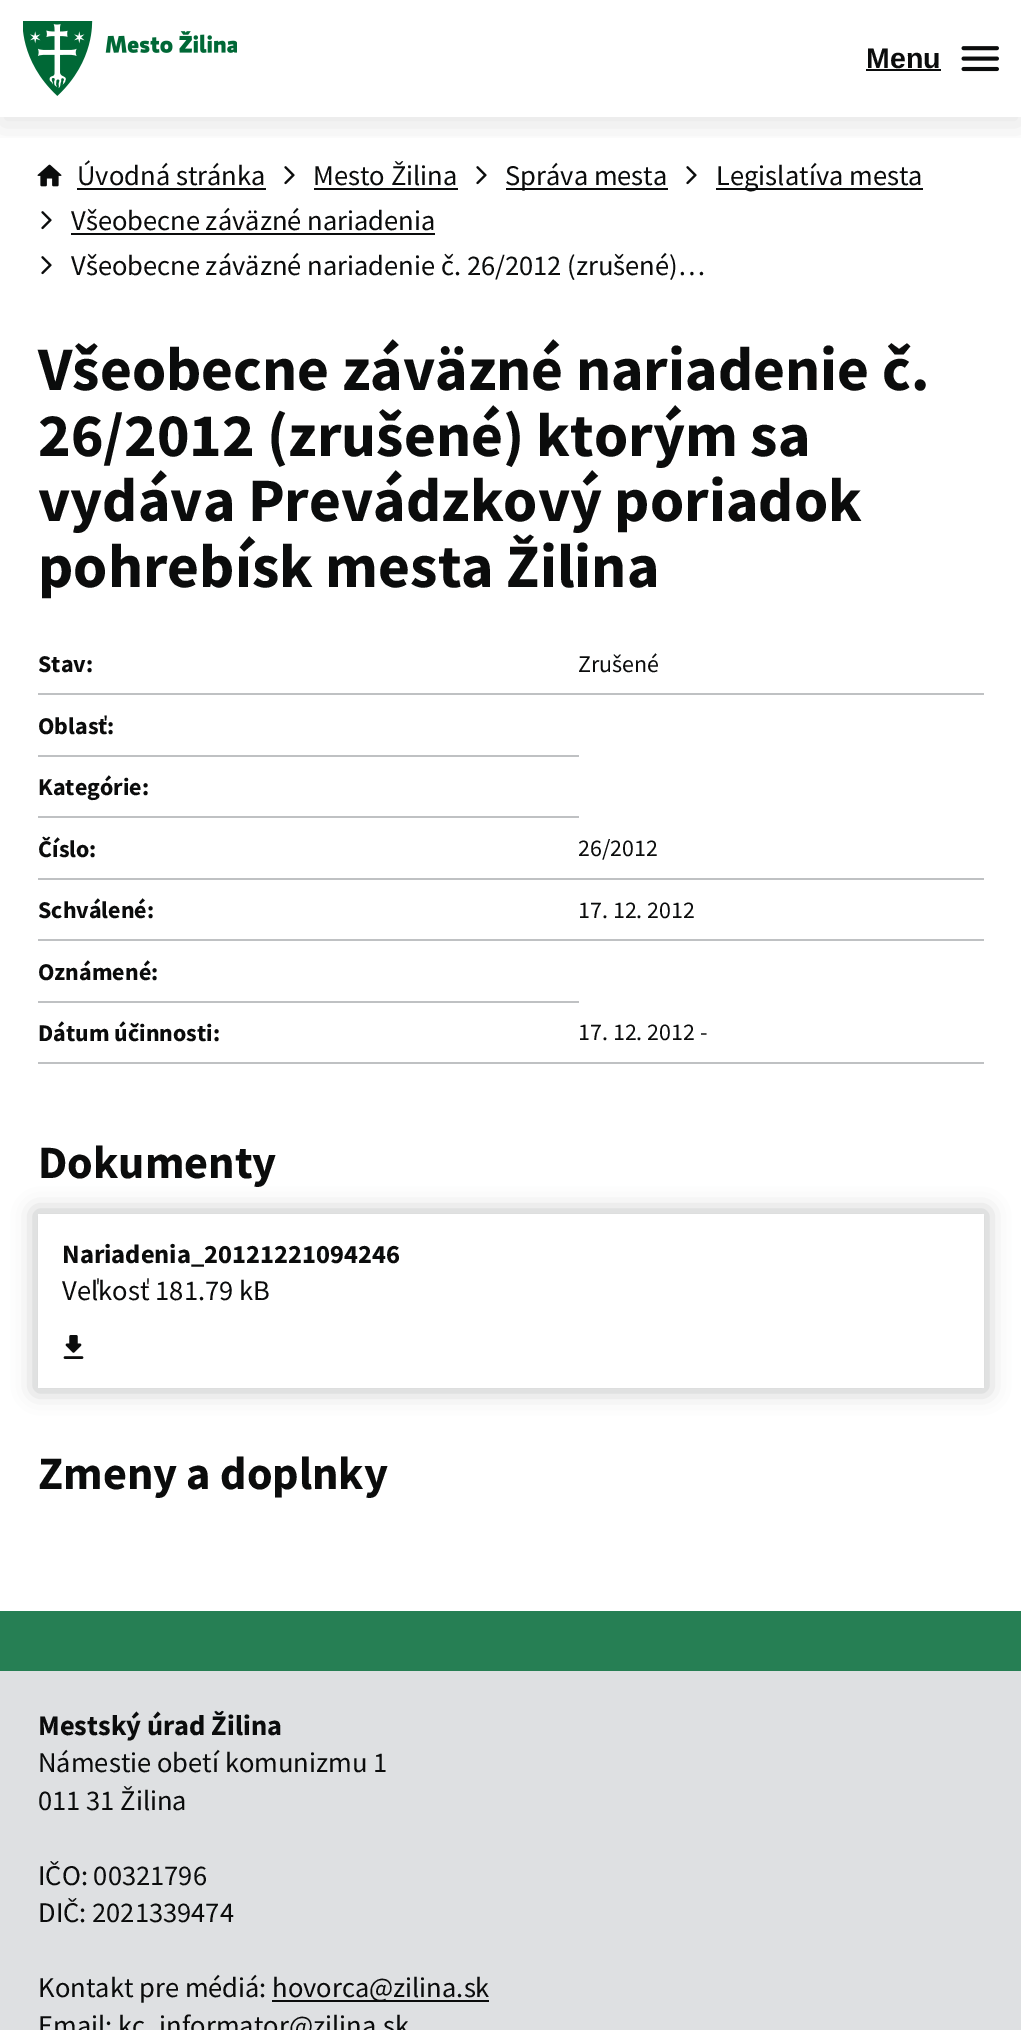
%!PS
<< /PageSize [1021 2030] /PageUsesTransparency true >> setpagedevice
/alpha { dup .setfillconstantalpha .setstrokeconstantalpha } def
/roundrect { 5 dict begin { /r /h /w /y /x } { exch def } forall
  x r add y moveto x w add y 2 copy h add r arct x w add y h add x 1 index r arct
  x y h add x y r arct x y 2 copy exch w add exch r arct closepath end } def
/shadow { 12 dict begin { /a /b /q /h /w /y /x } { exch def } forall gsave /was 0 def
  9 -2 -9 { dup b mul 4 div /e exch def 1 sub .425 mul 2.718 exch exp 1 add a .99 .min exch div /now exch def
    1 1 now sub 1 was sub div sub alpha /was now def
    w h .min e 2 mul add 0 gt { x e sub y e sub w e 2 mul add h e 2 mul add
      q e add b .6 mul add w h .min 2 div e add .min 0 .max roundrect fill } if } for grestore end } def
/picture { 5 dict begin { /h /w /y /x /name } { exch def } forall
  gsave x y translate w h scale
  w h 8 [w 0 0 h 0 0] name (r) file false 3 colorimage grestore end } def
0 .pushpdf14devicefilter
0 2030 translate 1 -1 scale
4 setmiterlimit
1 setgray
0 0 1021 2030 rectfill
(img3.rgb) 37 164 25 23 picture
(img4.rgb) 284 166 11 19 picture
(img4.rgb) 476 166 11 19 picture
(img4.rgb) 686 166 11 19 picture
gsave
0 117 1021 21 rectclip
0 setgray
0 8 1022 117 0 15 0.1 shadow
grestore
(img1.rgb) 23 21 214 75 picture
/LiberationSans-Bold [28.5 0 0 -28.5 0 0] selectfont
0.043 0.047 0.047 setrgbcolor
866 68 moveto (Menu) show
866 69 75 2 rectfill
(img2.rgb) 961 46 38 26 picture
/SourceSansPro-Regular [28.5 0 0 -28.5 0 0] selectfont
77 185 moveto (Úvodná stránka) show
77 188 189 2 rectfill
313 185 moveto (Mesto Žilina) show
314 188 144 2 rectfill
506 188 162 2 rectfill
505 185 moveto (Správa mesta) show
716 188 207 2 rectfill
716 185 moveto (Legislatíva mesta) show
(img4.rgb) 41 211 11 19 picture
71 230 moveto (Všeobecne záväzné nariadenia) show
71 233 364 2 rectfill
(img4.rgb) 41 256 11 19 picture
71 275 moveto (Všeobecne záväzné nariadenie č. 26/2012 \(zrušené\)…) show
/SourceSansPro-Bold [61.75 0 0 -61.75 0 0] selectfont
38 390 moveto (Všeobecne záväzné nariadenie č.) show
38 456 moveto (26/2012 \(zrušené\) ktorým sa) show
38 521 moveto (vydáva Prevádzkový poriadok) show
38 587 moveto (pohrebísk mesta Žilina) show
/SourceSansPro-Bold [24 0 0 -24 0 0] selectfont
38 672 moveto (Stav:) show
0.749 0.757 0.765 setrgbcolor
38 693 946 2 rectfill
/SourceSansPro-Regular [24 0 0 -24 0 0] selectfont
0.043 0.047 0.047 setrgbcolor
578 672 moveto (Zrušené) show
0.749 0.757 0.765 setrgbcolor
38 755 541 2 rectfill
/SourceSansPro-Bold [24 0 0 -24 0 0] selectfont
0.043 0.047 0.047 setrgbcolor
38 734 moveto (Oblasť:) show
0.749 0.757 0.765 setrgbcolor
38 816 541 2 rectfill
0.043 0.047 0.047 setrgbcolor
38 795 moveto (Kategórie:) show
38 857 moveto (Číslo:) show
0.749 0.757 0.765 setrgbcolor
38 878 946 2 rectfill
/SourceSansPro-Regular [24 0 0 -24 0 0] selectfont
0.043 0.047 0.047 setrgbcolor
578 856 moveto (26/2012) show
/SourceSansPro-Bold [24 0 0 -24 0 0] selectfont
38 918 moveto (Schválené:) show
0.749 0.757 0.765 setrgbcolor
38 939 946 2 rectfill
/SourceSansPro-Regular [24 0 0 -24 0 0] selectfont
0.043 0.047 0.047 setrgbcolor
578 918 moveto (17. 12. 2012) show
0.749 0.757 0.765 setrgbcolor
38 1001 541 2 rectfill
/SourceSansPro-Bold [24 0 0 -24 0 0] selectfont
0.043 0.047 0.047 setrgbcolor
38 980 moveto (Oznámené:) show
38 1041 moveto (Dátum účinnosti:) show
0.749 0.757 0.765 setrgbcolor
38 1062 946 2 rectfill
/SourceSansPro-Regular [24 0 0 -24 0 0] selectfont
0.043 0.047 0.047 setrgbcolor
578 1040 moveto (17. 12. 2012 -) show
/SourceSansPro-Bold [46.25 0 0 -46.25 0 0] selectfont
38 1178 moveto (Dokumenty) show
gsave
newpath 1 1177 moveto 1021 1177 lineto 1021 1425 lineto 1 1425 lineto closepath 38 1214 moveto 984 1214 lineto 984 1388 lineto 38 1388 lineto closepath eoclip newpath
0.749 0.757 0.765 setrgbcolor
35 1211 952 180 0 11 1 shadow
grestore
/SourceSansPro-Bold [26.5 0 0 -26.5 0 0] selectfont
62 1263 moveto (Nariadenia_20121221094246) show
/SourceSansPro-Regular [28.5 0 0 -28.5 0 0] selectfont
62 1300 moveto (Veľkosť 181.79 kB) show
(img5.rgb) 63 1335 21 24 picture
/SourceSansPro-Bold [46.25 0 0 -46.25 0 0] selectfont
38 1489 moveto (Zmeny a doplnky) show
0.871 0.878 0.886 setrgbcolor
0 1671 1021 359 rectfill
0.149 0.498 0.329 setrgbcolor
0 1611 1021 60 rectfill
/SourceSansPro-Bold [28.5 0 0 -28.5 0 0] selectfont
0.043 0.047 0.047 setrgbcolor
38 1735 moveto (Mestský úrad Žilina) show
/SourceSansPro-Regular [28.5 0 0 -28.5 0 0] selectfont
38 1772 moveto (Námestie obetí komunizmu 1) show
38 1810 moveto (011 31 Žilina) show
38 1885 moveto (IČO: 00321796) show
38 1922 moveto (DIČ: 2021339474) show
38 1997 moveto (Kontakt pre médiá:) show
272 2000 217 2 rectfill
272 1997 moveto (hovorca@zilina.sk) show
38 2035 moveto (Email: kc_informator@zilina.sk) show
.poppdf14devicefilter showpage
